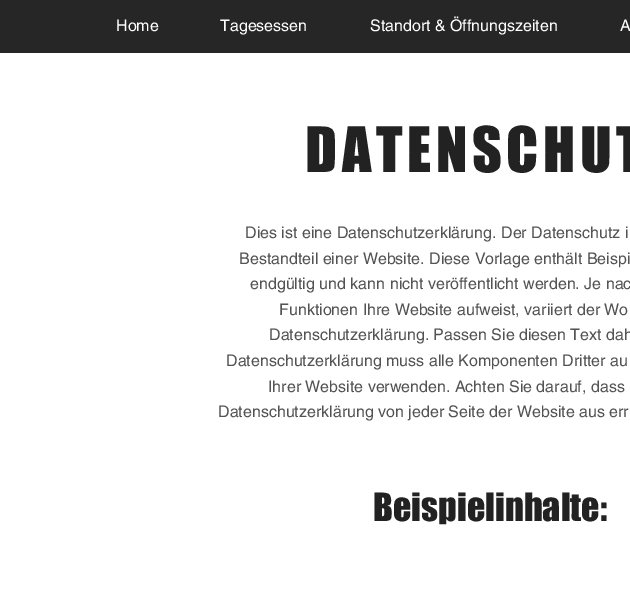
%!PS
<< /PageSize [630 593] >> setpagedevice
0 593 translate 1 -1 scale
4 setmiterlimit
1 setgray
0 0 630 593 rectfill
0.149 setgray
0 0 630 53 rectfill
/helvetica-Regular [16 0 0 -16 0 0] selectfont
1 setgray
116 31 moveto (Home) show
220 31 moveto (Tagesessen) show
370 31 moveto (Standort & Öffnungszeiten) show
620 31 moveto (A) show
/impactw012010-Regular [58 0 0 -58 0 0] selectfont
0.133 setgray
305 172 moveto 4.6 0 (DATENSCHUT) ashow
/helvetica-Regular [16 0 0 -16 0 0] selectfont
0.325 setgray
245 238 moveto (Dies ist eine Datenschutzerklärung. Der Datenschutz i) show
239 264 moveto (Bestandteil einer Website. Diese Vorlage enthält Beispi) show
250 289 moveto (endgültig und kann nicht veröffentlicht werden. Je nac) show
279 315 moveto (Funktionen Ihre Website aufweist, variiert der Wo) show
269 340 moveto (Datenschutzerklärung. Passen Sie diesen Text dah) show
226 366 moveto (Datenschutzerklärung muss alle Komponenten Dritter au) show
268 392 moveto (Ihrer Website verwenden. Achten Sie darauf, dass) show
218 417 moveto (Datenschutzerklärung von jeder Seite der Website aus err) show
/impactw012010-Regular [36 0 0 -36 0 0] selectfont
0.133 setgray
373 521 moveto (Beispielinhalte:) show
showpage
